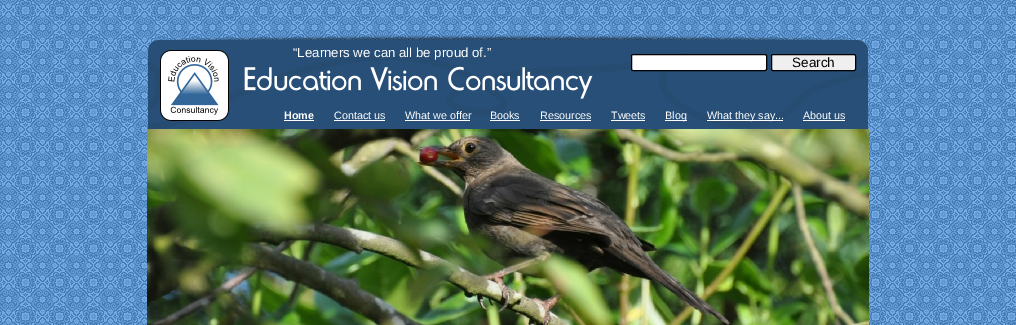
%!PS
<< /PageSize [1016 325] >> setpagedevice
/roundrect { 5 dict begin { /r /h /w /y /x } { exch def } forall
  x r add y moveto x w add y 2 copy h add r arct x w add y h add x 1 index r arct
  x y h add x y r arct x y 2 copy exch w add exch r arct closepath end } def
/picture { 5 dict begin { /h /w /y /x /name } { exch def } forall
  gsave x y translate w h scale
  w h 8 [w 0 0 h 0 0] name (r) file false 3 colorimage grestore end } def
0 325 translate 1 -1 scale
4 setmiterlimit
0.333 0.6 0.875 setrgbcolor
0 0 1016 325 rectfill
(img1.rgb) 0 0 1016 325 picture
(img2.rgb) 157 35 702 6 picture
(img3.rgb) 148 40 720 89 picture
(img4.rgb) 160 50 69 71 picture
/LiberationSans-Regular [13.25 0 0 -13.25 0 0] selectfont
1 setgray
293 57 moveto (“Learners we can all be proud of.”) show
631.5 54.5 135 16 1.5 roundrect gsave fill grestore
0 setgray
stroke
0.937 setgray
771.5 54.5 84 16 1.5 roundrect gsave fill grestore
0 setgray
stroke
/LiberationSans-Regular [13.5 0 0 -13.5 0 0] selectfont
792 67 moveto (Search) show
/LiberationSans-Bold [10.75 0 0 -10.75 0 0] selectfont
1 setgray
284 119 moveto (Home) show
284 120 30 1 rectfill
/LiberationSans-Regular [10.75 0 0 -10.75 0 0] selectfont
334 119 moveto (Contact us) show
334 120 51 1 rectfill
405 119 moveto (What we offer) show
405 120 65 1 rectfill
490 119 moveto (Books) show
490 120 30 1 rectfill
540 119 moveto (Resources) show
540 120 51 1 rectfill
611 119 moveto (Tweets) show
611 120 34 1 rectfill
665 120 22 1 rectfill
665 119 moveto (Blog) show
707 120 76 1 rectfill
707 119 moveto (What they say...) show
803 119 moveto (About us) show
803 120 42 1 rectfill
(img5.rgb) 147 129 722 196 picture
showpage
